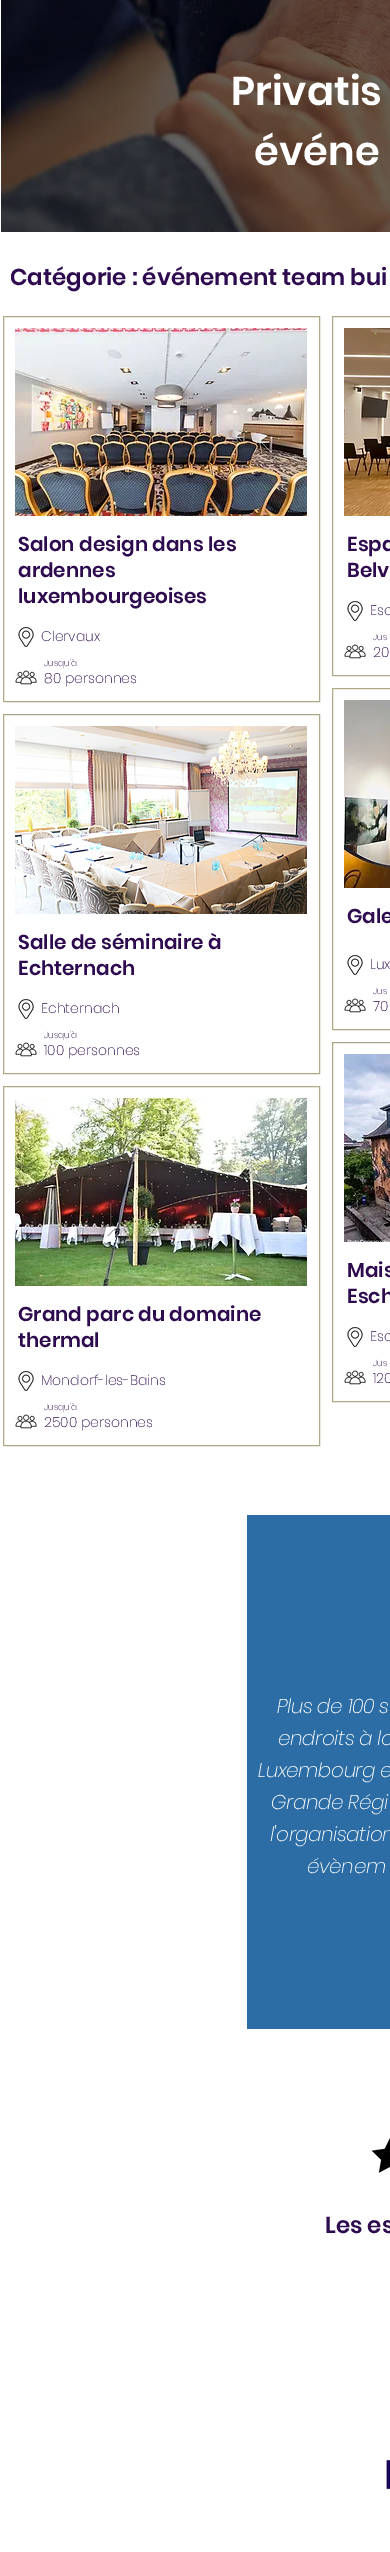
%!PS
<< /PageSize [390 2552] >> setpagedevice
/picture { 5 dict begin { /h /w /y /x /name } { exch def } forall
  gsave x y translate w h scale
  w h 8 [w 0 0 h 0 0] name (r) file false 3 colorimage grestore end } def
0 2552 translate 1 -1 scale
4 setmiterlimit
1 setgray
0 0 390 2552 rectfill
(img1.rgb) 1 0 389 232 picture
/Poppins-SemiBold [40 0 0 -40 0 0] selectfont
231 105 moveto (Privatis) show
254 165 moveto (événe) show
/Poppins-SemiBold [23 0 0 -23 0 0] selectfont
0.176 0.043 0.306 setrgbcolor
10 285 moveto (Catégorie : événement team bui) show
0.69 0.663 0.525 setrgbcolor
3.5 316.5 316 385 rectstroke
(img2.rgb) 15 328 292 188 picture
/Poppins-SemiBold [20 0 0 -20 0 0] selectfont
0.176 0.043 0.306 setrgbcolor
18 551 moveto (Salon design dans les) show
18 577 moveto (ardennes) show
18 603 moveto (luxembourgeoises) show
(img3.rgb) 18 627 16 20 picture
/Poppins-ExtraLight [14 0 0 -14 0 0] selectfont
41 641 moveto (Clervaux) show
/Poppins-ExtraLight [9 0 0 -9 0 0] selectfont
44 666 moveto (Jusqu'à) show
(img4.rgb) 15 670 22 15 picture
/Poppins-ExtraLight [14 0 0 -14 0 0] selectfont
44 683 moveto (80 personnes) show
0.69 0.663 0.525 setrgbcolor
3.5 714.5 316 359 rectstroke
(img5.rgb) 15 726 292 188 picture
/Poppins-SemiBold [20 0 0 -20 0 0] selectfont
0.176 0.043 0.306 setrgbcolor
18 949 moveto (Salle de séminaire à) show
18 975 moveto (Echternach) show
(img3.rgb) 18 999 16 20 picture
/Poppins-ExtraLight [14 0 0 -14 0 0] selectfont
41 1013 moveto (Echternach) show
/Poppins-ExtraLight [9 0 0 -9 0 0] selectfont
44 1038 moveto (Jusqu'à) show
(img4.rgb) 15 1042 22 15 picture
/Poppins-ExtraLight [14 0 0 -14 0 0] selectfont
44 1055 moveto (100 personnes) show
0.69 0.663 0.525 setrgbcolor
3.5 1086.5 316 359 rectstroke
(img6.rgb) 15 1098 292 188 picture
/Poppins-SemiBold [20 0 0 -20 0 0] selectfont
0.176 0.043 0.306 setrgbcolor
18 1321 moveto (Grand parc du domaine) show
18 1347 moveto (thermal) show
(img3.rgb) 18 1371 16 20 picture
/Poppins-ExtraLight [14 0 0 -14 0 0] selectfont
41 1385 moveto (Mondorf-les-Bains) show
/Poppins-ExtraLight [9 0 0 -9 0 0] selectfont
44 1410 moveto (Jusqu'à) show
(img4.rgb) 15 1414 22 15 picture
/Poppins-ExtraLight [14 0 0 -14 0 0] selectfont
44 1427 moveto (2500 personnes) show
0.69 0.663 0.525 setrgbcolor
332.5 316.5 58 359 rectstroke
(img7.rgb) 344 328 46 188 picture
/Poppins-SemiBold [20 0 0 -20 0 0] selectfont
0.176 0.043 0.306 setrgbcolor
347 551 moveto (Espa) show
347 577 moveto (Belv) show
(img3.rgb) 347 601 16 20 picture
/Poppins-ExtraLight [14 0 0 -14 0 0] selectfont
370 615 moveto (Esc) show
/Poppins-ExtraLight [9 0 0 -9 0 0] selectfont
373 640 moveto (Jus) show
(img4.rgb) 344 644 22 15 picture
/Poppins-ExtraLight [14 0 0 -14 0 0] selectfont
373 657 moveto (20) show
0.69 0.663 0.525 setrgbcolor
332.5 688.5 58 341 rectstroke
(img8.rgb) 344 700 46 188 picture
/Poppins-SemiBold [20 0 0 -20 0 0] selectfont
0.176 0.043 0.306 setrgbcolor
347 923 moveto (Gale) show
(img3.rgb) 347 955 16 20 picture
/Poppins-ExtraLight [14 0 0 -14 0 0] selectfont
370 969 moveto (Lux) show
/Poppins-ExtraLight [9 0 0 -9 0 0] selectfont
373 994 moveto (Jus) show
(img4.rgb) 344 998 22 15 picture
/Poppins-ExtraLight [14 0 0 -14 0 0] selectfont
373 1011 moveto (70) show
0.69 0.663 0.525 setrgbcolor
332.5 1042.5 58 359 rectstroke
(img9.rgb) 344 1054 46 188 picture
/Poppins-SemiBold [20 0 0 -20 0 0] selectfont
0.176 0.043 0.306 setrgbcolor
347 1277 moveto (Mais) show
347 1303 moveto (Esch) show
(img3.rgb) 347 1327 16 20 picture
/Poppins-ExtraLight [14 0 0 -14 0 0] selectfont
370 1341 moveto (Esc) show
/Poppins-ExtraLight [9 0 0 -9 0 0] selectfont
373 1366 moveto (Jus) show
(img4.rgb) 344 1370 22 15 picture
/Poppins-ExtraLight [14 0 0 -14 0 0] selectfont
373 1383 moveto (120) show
0.173 0.427 0.647 setrgbcolor
247 1515 143 514 rectfill
/Poppins-ExtraLightItalic [20 0 0 -20 0 0] selectfont
1 setgray
277 1713 moveto -0.4 0 (Plus de 100 s) ashow
278 1745 moveto -0.4 0 (endroits à lo) ashow
258 1777 moveto -0.4 0 (Luxembourg e) ashow
271 1809 moveto -0.4 0 (Grande Régi) ashow
270 1841 moveto -0.4 0 (l'organisation) ashow
307 1873 moveto -0.4 0 (évènem) ashow
(img10.rgb) 371 2137 19 36 picture
/Poppins-SemiBold [23 0 0 -23 0 0] selectfont
0.176 0.043 0.306 setrgbcolor
325 2233 moveto (Les es) show
(img11.rgb) 386 2460 4 30 picture
showpage
